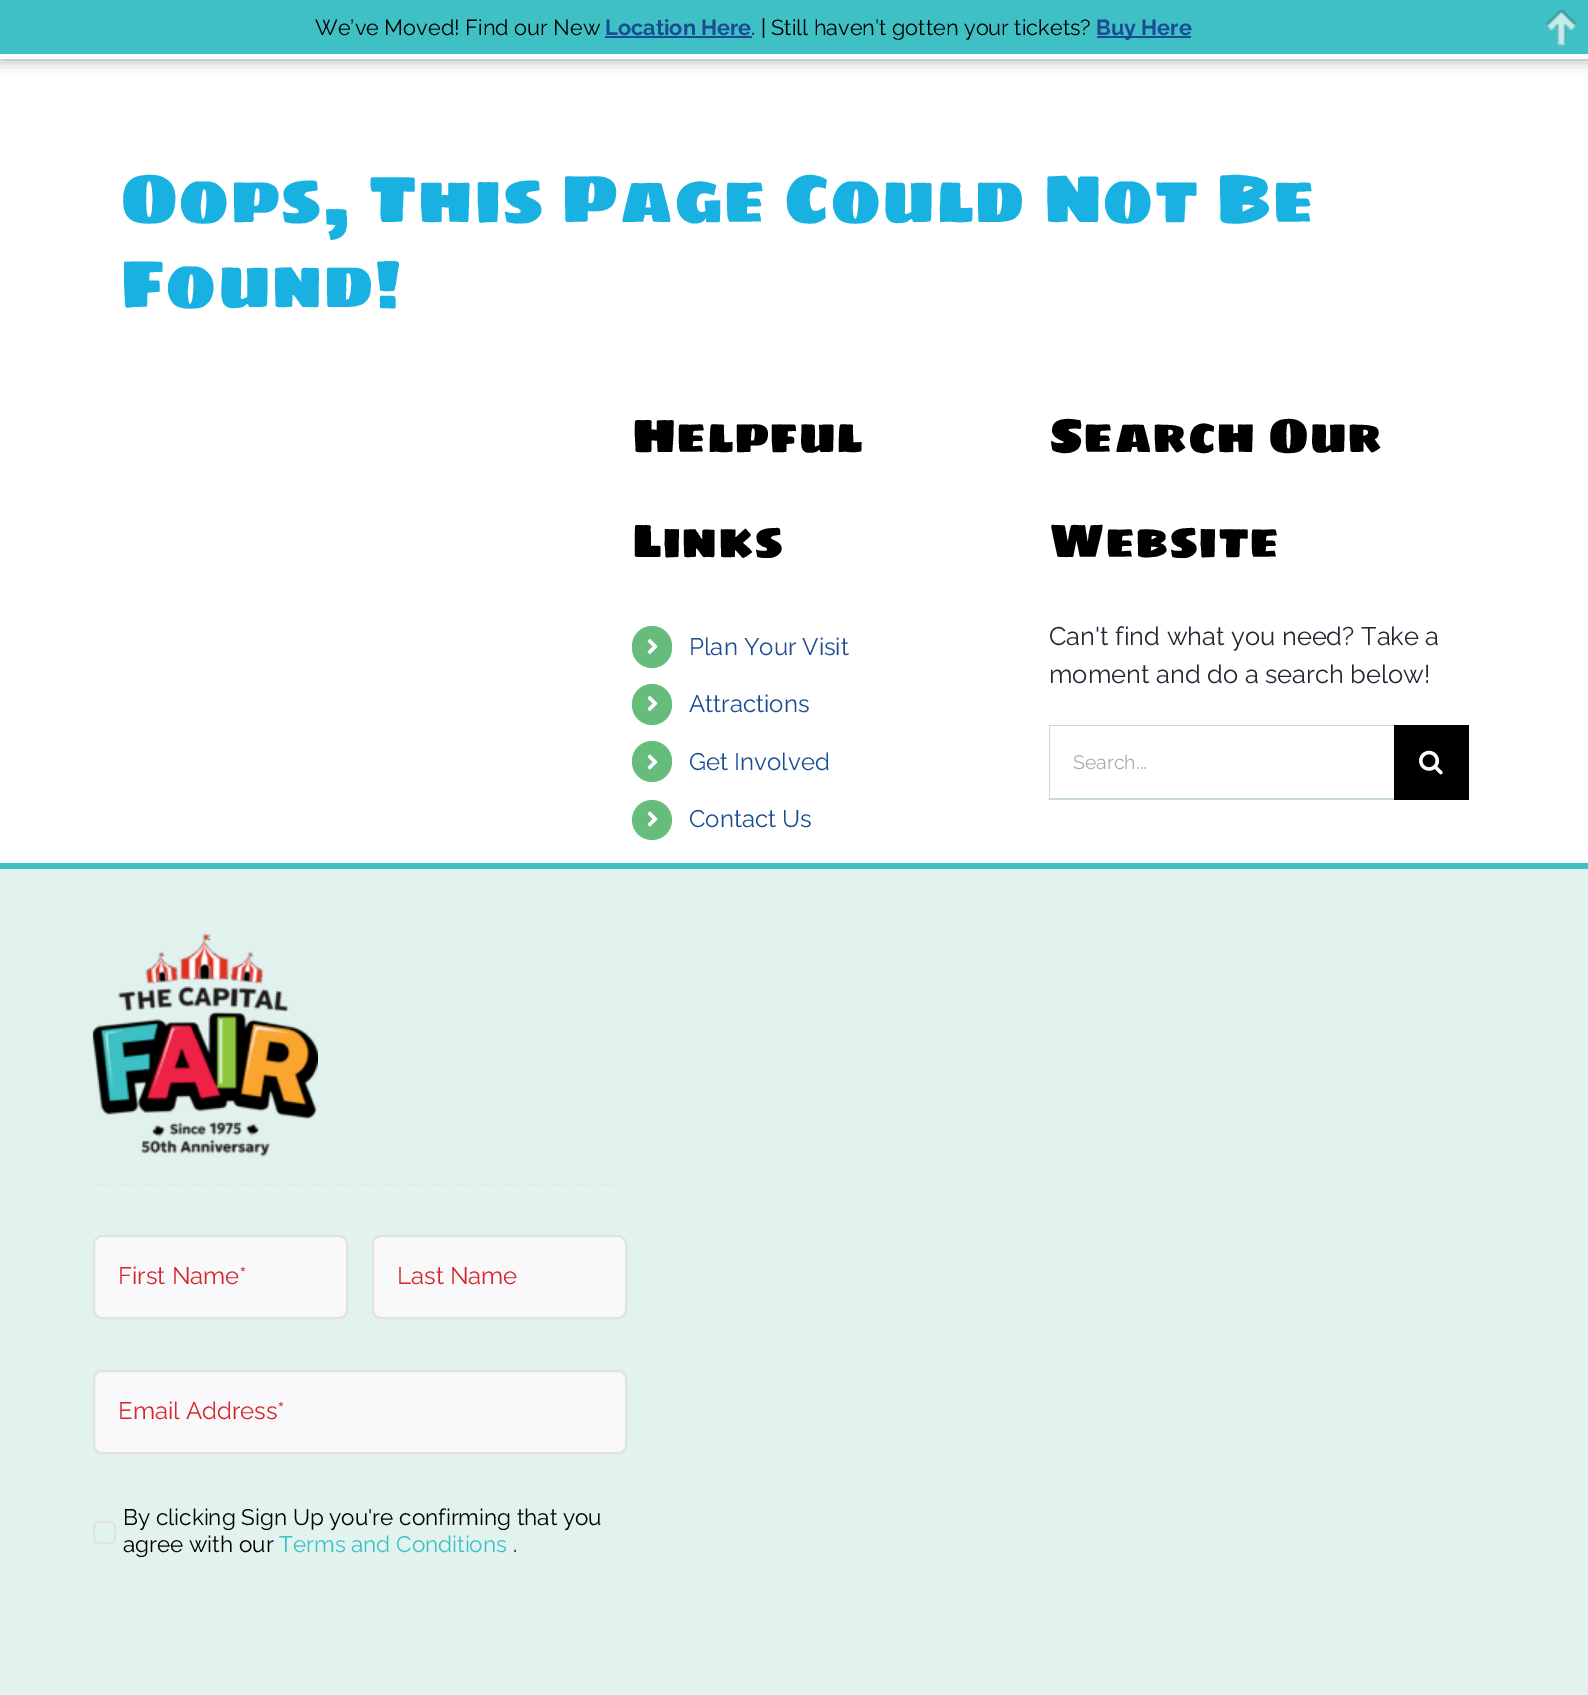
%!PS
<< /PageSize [1588 1695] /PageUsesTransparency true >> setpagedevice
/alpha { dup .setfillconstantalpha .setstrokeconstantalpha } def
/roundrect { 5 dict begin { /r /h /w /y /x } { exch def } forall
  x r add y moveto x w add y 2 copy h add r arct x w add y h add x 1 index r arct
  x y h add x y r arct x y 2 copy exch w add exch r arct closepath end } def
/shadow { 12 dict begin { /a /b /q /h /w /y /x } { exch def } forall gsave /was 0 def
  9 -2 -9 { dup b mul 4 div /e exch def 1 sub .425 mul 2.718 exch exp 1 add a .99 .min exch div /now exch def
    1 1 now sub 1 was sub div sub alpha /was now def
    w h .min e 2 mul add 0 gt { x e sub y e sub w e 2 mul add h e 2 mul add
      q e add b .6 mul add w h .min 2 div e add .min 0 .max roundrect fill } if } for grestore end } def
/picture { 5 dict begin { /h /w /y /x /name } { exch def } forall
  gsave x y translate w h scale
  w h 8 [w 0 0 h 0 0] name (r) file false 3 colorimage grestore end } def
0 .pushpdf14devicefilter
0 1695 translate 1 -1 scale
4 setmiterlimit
1 setgray
0 0 1588 1695 rectfill
0 setgray
0 0 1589 59 0 7.5 0.4 shadow
0.247 0.753 0.769 setrgbcolor
0 0 1588 54 rectfill
1 setgray
0 54 1588 5 rectfill
/Raleway-Regular [21.7 0 0 -21.7 0 0] selectfont
0 setgray
315 35 moveto (We’ve Moved! Find our New) show
/Raleway-Bold [21.7 0 0 -21.7 0 0] selectfont
0.102 0.298 0.58 setrgbcolor
605 35 moveto (Location Here) show
605 36 147 2 rectfill
/Raleway-Regular [21.7 0 0 -21.7 0 0] selectfont
0 setgray
751 35 moveto (. | Still haven’t gotten your tickets?) show
0.102 0.298 0.58 setrgbcolor
1097 36 94 2 rectfill
/Raleway-Bold [21.7 0 0 -21.7 0 0] selectfont
1096 35 moveto (Buy Here) show
(img1.rgb) 1546 9 31 37 picture
/SigmarOne-Regular [68.1 0 0 -68.1 0 0] selectfont
0.094 0.694 0.886 setrgbcolor
120 222 moveto (Oops, This Page Could Not Be) show
120 307 moveto (Found!) show
/SigmarOne-Regular [47.75 0 0 -47.75 0 0] selectfont
0 setgray
632 452 moveto (Helpful) show
632 557 moveto (Links) show
0.396 0.737 0.482 setrgbcolor
632 626 40 42 20 roundrect fill
(img2.rgb) 647 639 11 15 picture
/Raleway-Regular [24 0 0 -24 0 0] selectfont
0.102 0.298 0.58 setrgbcolor
689 655 moveto (Plan Your Visit) show
0.396 0.737 0.482 setrgbcolor
632 684 40 41 20 roundrect fill
(img2.rgb) 647 696 11 15 picture
0.102 0.298 0.58 setrgbcolor
689 712 moveto (Attractions) show
0.396 0.737 0.482 setrgbcolor
632 741 40 41 20 roundrect fill
(img3.rgb) 647 754 11 16 picture
0.102 0.298 0.58 setrgbcolor
689 770 moveto (Get Involved) show
0.396 0.737 0.482 setrgbcolor
newpath 652 820 20 0 360 arc closepath fill
(img3.rgb) 647 811 11 16 picture
0.102 0.298 0.58 setrgbcolor
689 827 moveto (Contact Us) show
/SigmarOne-Regular [47.75 0 0 -47.75 0 0] selectfont
0 setgray
1049 452 moveto (Search Our) show
1049 557 moveto (Website) show
/Raleway-Regular [25.5 0 0 -25.5 0 0] selectfont
0.129 0.161 0.204 setrgbcolor
1049 645 moveto (Can't find what you need? Take a) show
1049 683 moveto (moment and do a search below!) show
gsave
1049 725 420 75 rectclip
0.784 0.843 0.851 setrgbcolor
newpath 1048 724 moveto 1394 724 lineto 1394 726 lineto 1050 726 lineto closepath fill
grestore
0.784 0.843 0.851 setrgbcolor
newpath 1394 800 moveto 1048 800 lineto 1050 798 lineto 1394 798 lineto closepath fill
gsave
1049 725 420 75 rectclip
0.77 alpha
0.718 0.796 0.808 setrgbcolor
newpath 1048 800 moveto 1048 724 lineto 1050 726 lineto 1050 798 lineto closepath fill
grestore
/Raleway-Regular [19.5 0 0 -19.5 0 0] selectfont
0.667 0.663 0.663 setrgbcolor
1073 769 moveto (Search...) show
0 setgray
1394 725 75 75 rectfill
(img4.rgb) 1419 750 24 25 picture
0.886 0.949 0.933 setrgbcolor
0 869 1588 826 rectfill
0.247 0.753 0.769 setrgbcolor
0 863 1588 6 rectfill
(img5.rgb) 92 933 226 224 picture
0.886 setgray
1.5 setlinewidth
[1.5 1.5] 0 setdash
newpath 93 1184 moveto 627 1184 lineto stroke
0.976 0.976 0.984 setrgbcolor
94 1236 253 82 8 roundrect gsave fill grestore
0.886 setgray
2 setlinewidth
[] 0 setdash
stroke
/Raleway-Regular [24 0 0 -24 0 0] selectfont
0.824 0.153 0.169 setrgbcolor
118 1284 moveto (First Name*) show
0.976 0.976 0.984 setrgbcolor
373 1236 253 82 8 roundrect gsave fill grestore
0.886 setgray
stroke
0.824 0.153 0.169 setrgbcolor
397 1284 moveto (Last Name) show
0.976 0.976 0.984 setrgbcolor
94 1371 532 82 8 roundrect gsave fill grestore
0.886 setgray
stroke
0.824 0.153 0.169 setrgbcolor
118 1419 moveto (Email Address*) show
0.886 setgray
94 1522 21 21 5 roundrect stroke
/Raleway-Regular [22.5 0 0 -22.5 0 0] selectfont
0 setgray
123 1525 moveto (By clicking Sign Up you're confirming that you) show
123 1552 moveto (agree with our) show
0.247 0.753 0.769 setrgbcolor
279 1552 moveto (Terms and Conditions) show
0 setgray
513 1552 moveto (.) show
.poppdf14devicefilter showpage
